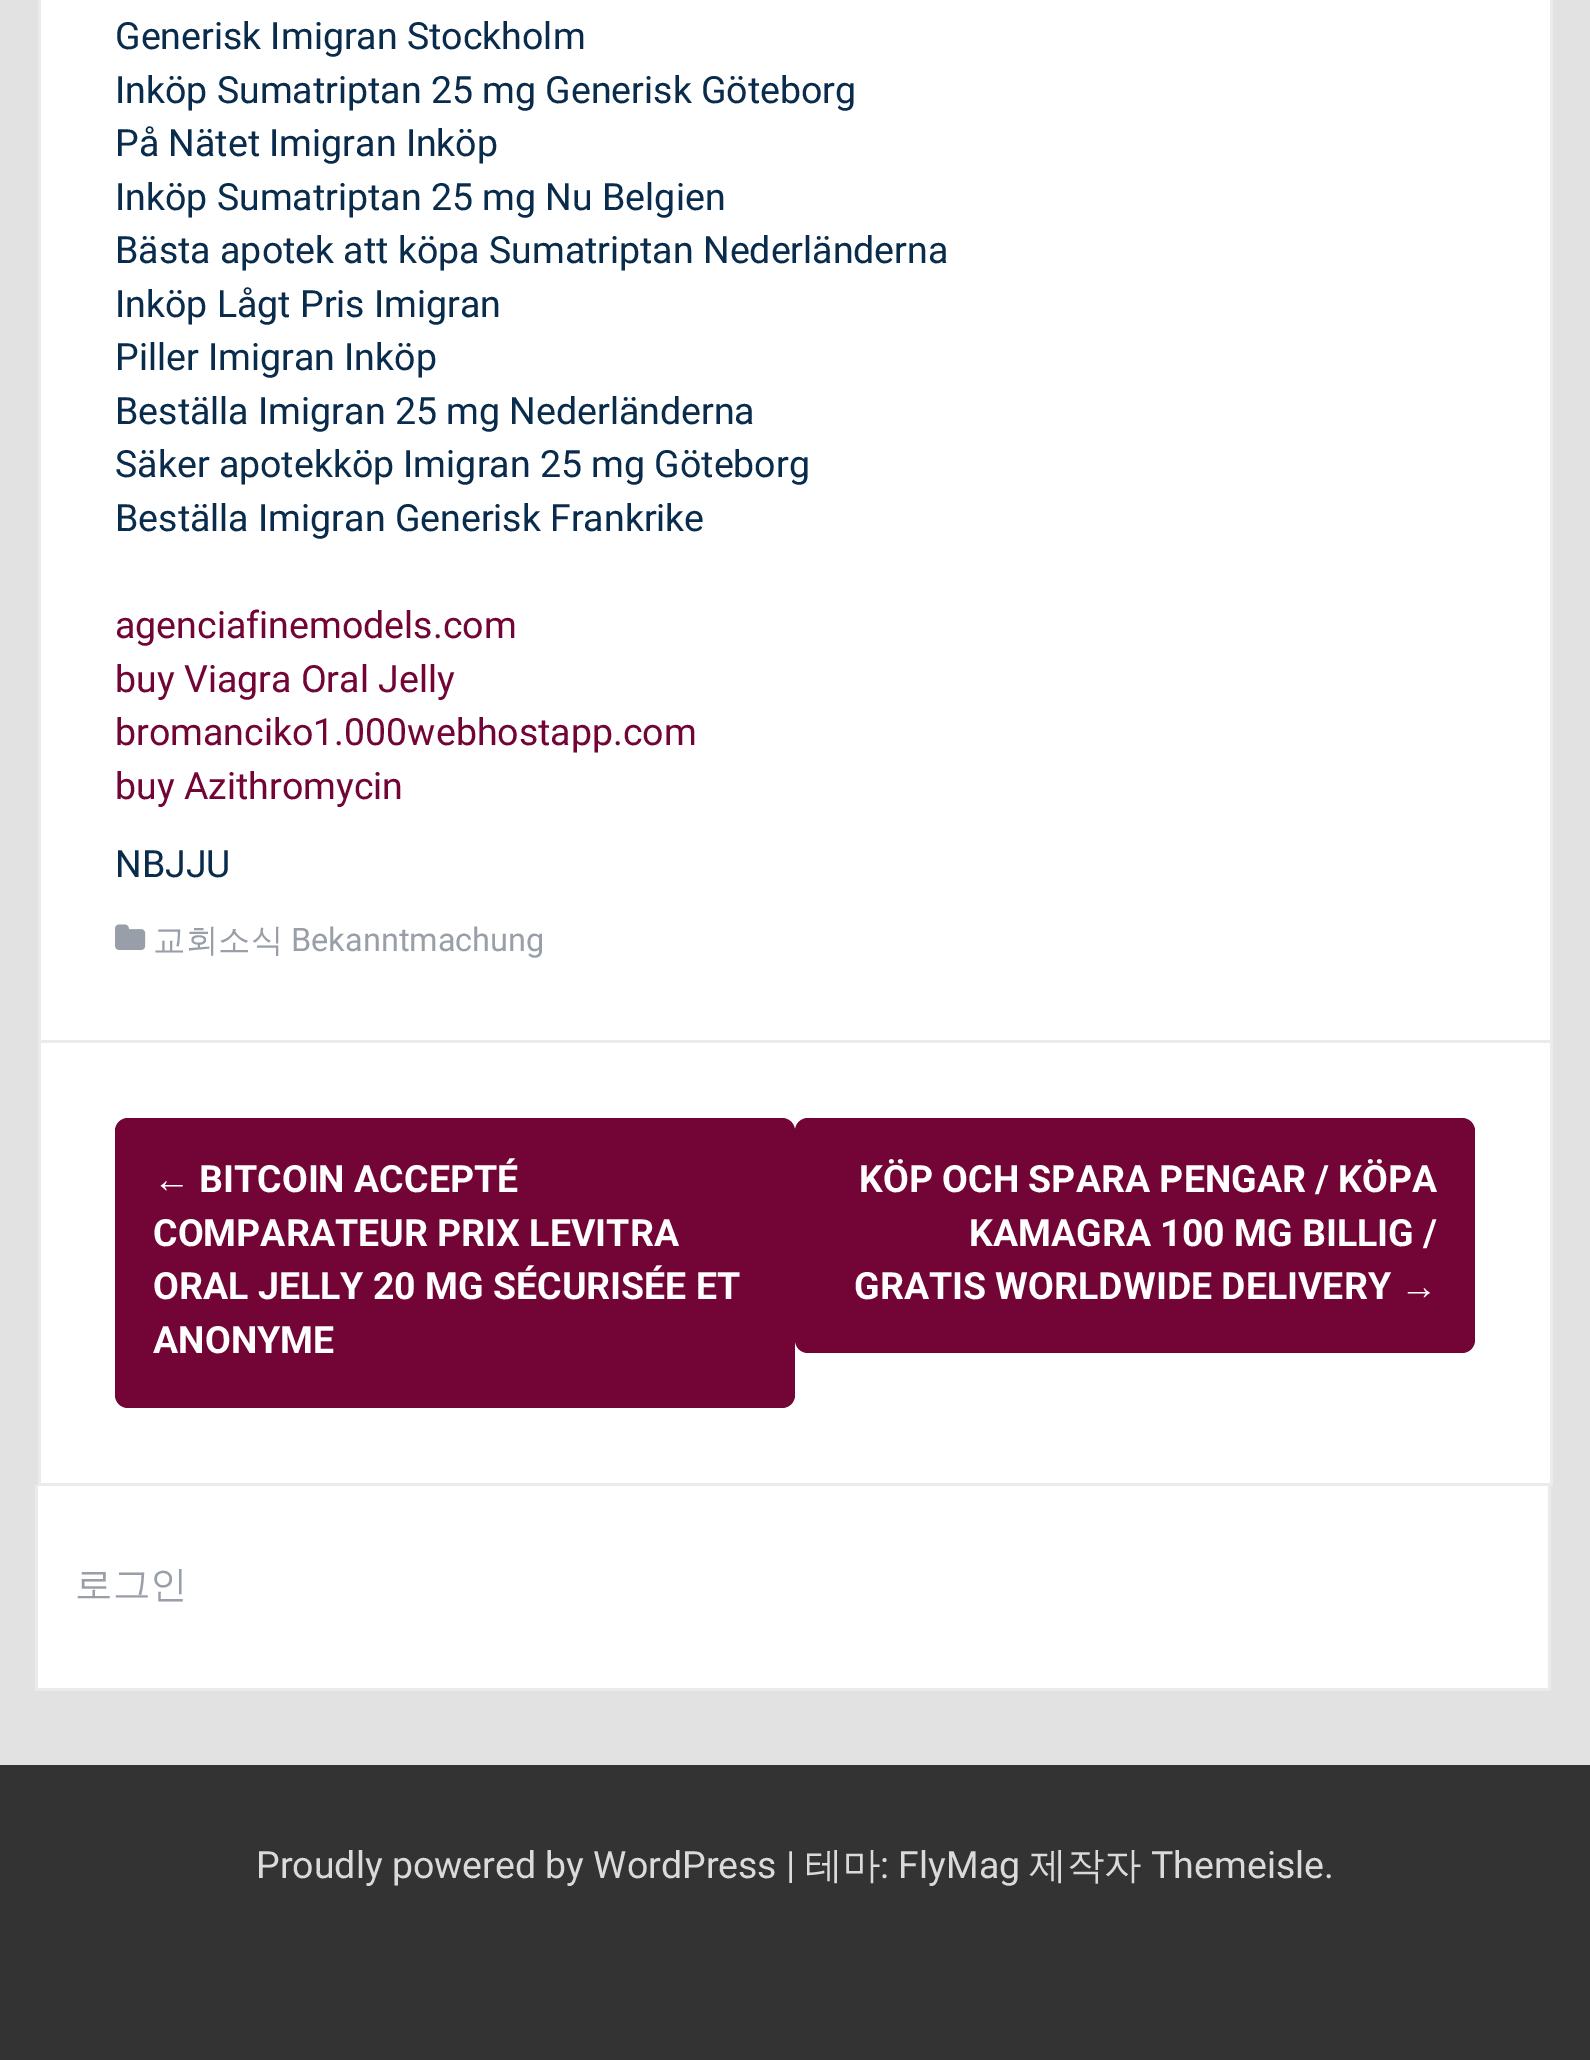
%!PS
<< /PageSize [1590 2060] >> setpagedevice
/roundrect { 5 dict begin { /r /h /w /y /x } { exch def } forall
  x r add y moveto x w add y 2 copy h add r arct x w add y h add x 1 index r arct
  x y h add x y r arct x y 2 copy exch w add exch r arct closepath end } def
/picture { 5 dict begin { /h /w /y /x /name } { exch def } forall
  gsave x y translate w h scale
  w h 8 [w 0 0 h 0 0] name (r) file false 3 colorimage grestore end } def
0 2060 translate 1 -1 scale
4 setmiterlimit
0.886 setgray
0 0 1590 2060 rectfill
1 setgray
41 0 1509 1040 rectfill
0.922 setgray
1550 0 3 1485 rectfill
38 1040 1515 3 rectfill
38 0 3 1043 rectfill
/Roboto-Regular [37.5 0 0 -37.5 0 0] selectfont
0.035 0.169 0.298 setrgbcolor
115 49 moveto (Generisk Imigran Stockholm) show
115 103 moveto (Inköp Sumatriptan 25 mg Generisk Göteborg) show
115 156 moveto (På Nätet Imigran Inköp) show
115 210 moveto (Inköp Sumatriptan 25 mg Nu Belgien) show
115 263 moveto (Bästa apotek att köpa Sumatriptan Nederländerna) show
115 317 moveto (Inköp Lågt Pris Imigran) show
115 370 moveto (Piller Imigran Inköp) show
115 424 moveto (Beställa Imigran 25 mg Nederländerna) show
115 477 moveto (Säker apotekköp Imigran 25 mg Göteborg) show
115 531 moveto (Beställa Imigran Generisk Frankrike) show
0.447 0.02 0.212 setrgbcolor
115 638 moveto (agenciafinemodels.com) show
115 692 moveto (buy Viagra Oral Jelly) show
115 745 moveto (bromanciko1.000webhostapp.com) show
115 799 moveto (buy Azithromycin) show
0.035 0.169 0.298 setrgbcolor
115 877 moveto (NBJJU) show
(img1.rgb) 115 924 31 26 picture
/WenQuanYiZenHei-Medium [32.5 0 0 -32.5 0 0] selectfont
0.596 0.624 0.659 setrgbcolor
153 951 moveto (교회소식) show
/Roboto-Regular [32.5 0 0 -32.5 0 0] selectfont
291 951 moveto (Bekanntmachung) show
1 setgray
41 1043 1509 440 rectfill
0.922 setgray
1548 1485 3 205 rectfill
38 1483 1515 3 rectfill
38 1043 3 442 rectfill
0.447 0.02 0.212 setrgbcolor
115 1118 680 290 13 roundrect fill
/LiberationSans-Bold [37.5 0 0 -37.5 0 0] selectfont
1 setgray
153 1192 moveto (←) show
/Roboto-Bold [37.5 0 0 -37.5 0 0] selectfont
199 1192 moveto (BITCOIN ACCEPTÉ) show
153 1246 moveto (COMPARATEUR PRIX LEVITRA) show
153 1299 moveto (ORAL JELLY 20 MG SÉCURISÉE ET) show
153 1353 moveto (ANONYME) show
0.447 0.02 0.212 setrgbcolor
795 1118 680 235 13 roundrect fill
1 setgray
859 1192 moveto (KÖP OCH SPARA PENGAR / KÖPA) show
969 1246 moveto (KAMAGRA 100 MG BILLIG /) show
854 1299 moveto (GRATIS WORLDWIDE DELIVERY) show
/LiberationSans-Bold [37.5 0 0 -37.5 0 0] selectfont
1400 1299 moveto (→) show
38 1486 1510 202 rectfill
0.922 setgray
35 1688 1515 3 rectfill
35 1485 3 205 rectfill
/WenQuanYiZenHei-Medium [37.5 0 0 -37.5 0 0] selectfont
0.596 0.624 0.659 setrgbcolor
75 1597 moveto (로그인) show
0.2 setgray
0 1765 1590 295 rectfill
/Roboto-Regular [37.5 0 0 -37.5 0 0] selectfont
0.855 setgray
256 1878 moveto (Proudly powered by WordPress |) show
/WenQuanYiZenHei-Medium [37.5 0 0 -37.5 0 0] selectfont
805 1878 moveto (테마) show
/Roboto-Regular [37.5 0 0 -37.5 0 0] selectfont
880 1878 moveto (: FlyMag) show
/WenQuanYiZenHei-Medium [37.5 0 0 -37.5 0 0] selectfont
1029 1878 moveto (제작자) show
/Roboto-Regular [37.5 0 0 -37.5 0 0] selectfont
1151 1878 moveto (Themeisle.) show
showpage
